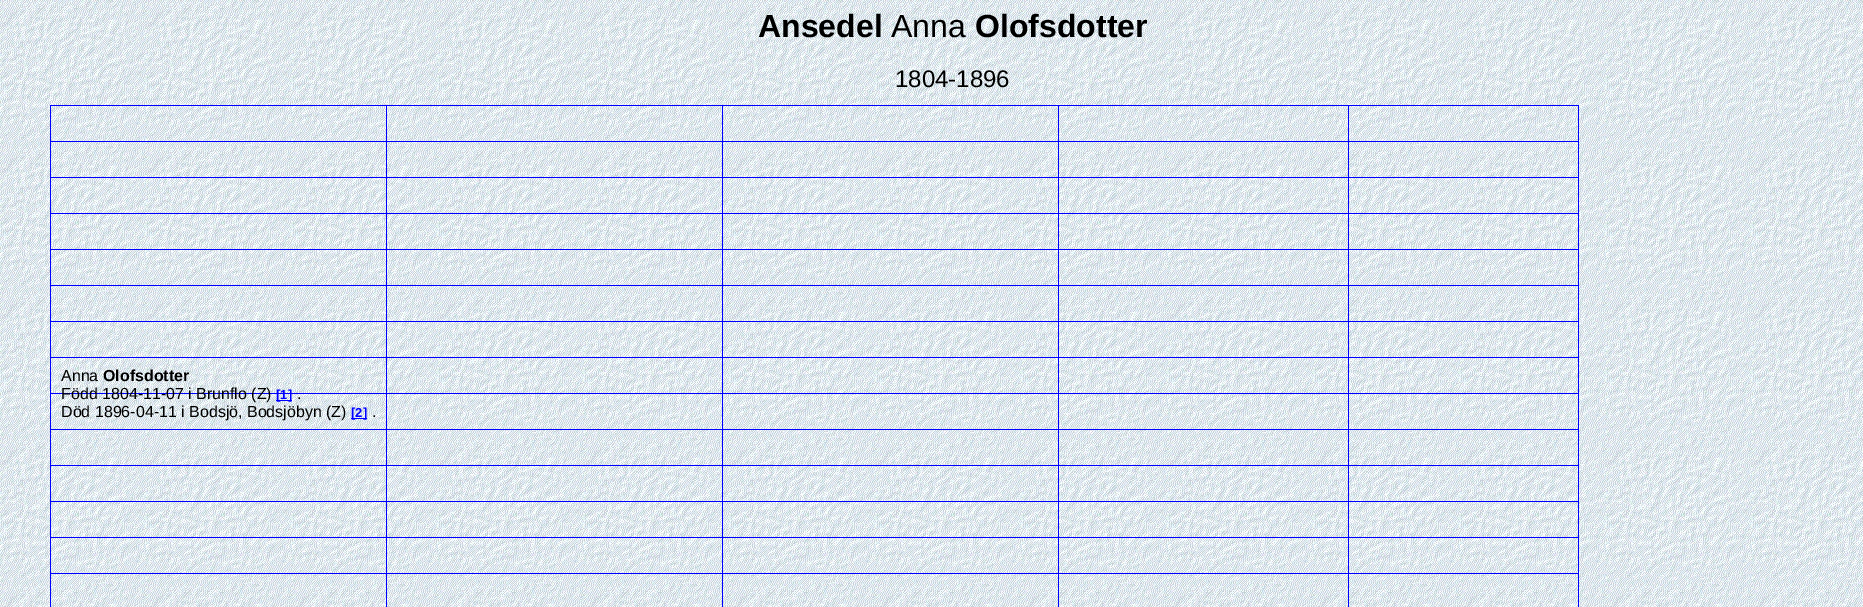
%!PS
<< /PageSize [1863 607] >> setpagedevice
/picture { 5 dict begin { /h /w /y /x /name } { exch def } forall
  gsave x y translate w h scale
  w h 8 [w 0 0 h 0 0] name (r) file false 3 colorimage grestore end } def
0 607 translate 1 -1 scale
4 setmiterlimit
1 setgray
0 0 1863 607 rectfill
(img1.rgb) 0 0 1863 607 picture
/LiberationSans-Bold [32 0 0 -32 0 0] selectfont
0 setgray
758 37 moveto (Ansedel) show
/LiberationSans-Regular [32 0 0 -32 0 0] selectfont
891 37 moveto (Anna) show
/LiberationSans-Bold [32 0 0 -32 0 0] selectfont
975 37 moveto (Olofsdotter) show
/LiberationSans-Regular [24 0 0 -24 0 0] selectfont
895 87 moveto (1804-1896) show
0 0 1 setrgbcolor
50 105 1529 1 rectfill
1578 105 1 502 rectfill
50 105 1 502 rectfill
50 573 1529 1 rectfill
50 537 1529 1 rectfill
50 393 1529 1 rectfill
50 141 1529 1 rectfill
50 177 1529 1 rectfill
50 213 1529 1 rectfill
50 249 1529 1 rectfill
50 285 1529 1 rectfill
50 321 1529 1 rectfill
50 357 1529 1 rectfill
50 429 1529 1 rectfill
50 465 1529 1 rectfill
50 501 1529 1 rectfill
1348 105 1 502 rectfill
722 105 1 502 rectfill
1058 105 1 502 rectfill
386 105 1 502 rectfill
/LiberationSans-Regular [16 0 0 -16 0 0] selectfont
0 setgray
61 381 moveto (Anna) show
/LiberationSans-Bold [16 0 0 -16 0 0] selectfont
103 381 moveto (Olofsdotter) show
/LiberationSans-Regular [16 0 0 -16 0 0] selectfont
61 399 moveto (Född 1804-11-07 i Brunflo \(Z\)) show
0 0 1 setrgbcolor
276 400 16 1 rectfill
/LiberationSans-Bold [13 0 0 -13 0 0] selectfont
276 399 moveto ([1]) show
/LiberationSans-Regular [16 0 0 -16 0 0] selectfont
0 setgray
297 399 moveto (.) show
61 417 moveto (Död 1896-04-11 i Bodsjö, Bodsjöbyn \(Z\)) show
0 0 1 setrgbcolor
351 418 4 1 rectfill
/LiberationSans-Bold [13 0 0 -13 0 0] selectfont
351 417 moveto ([2) show
355 418 12 1 rectfill
363 417 moveto (]) show
/LiberationSans-Regular [16 0 0 -16 0 0] selectfont
0 setgray
372 417 moveto (.) show
showpage
